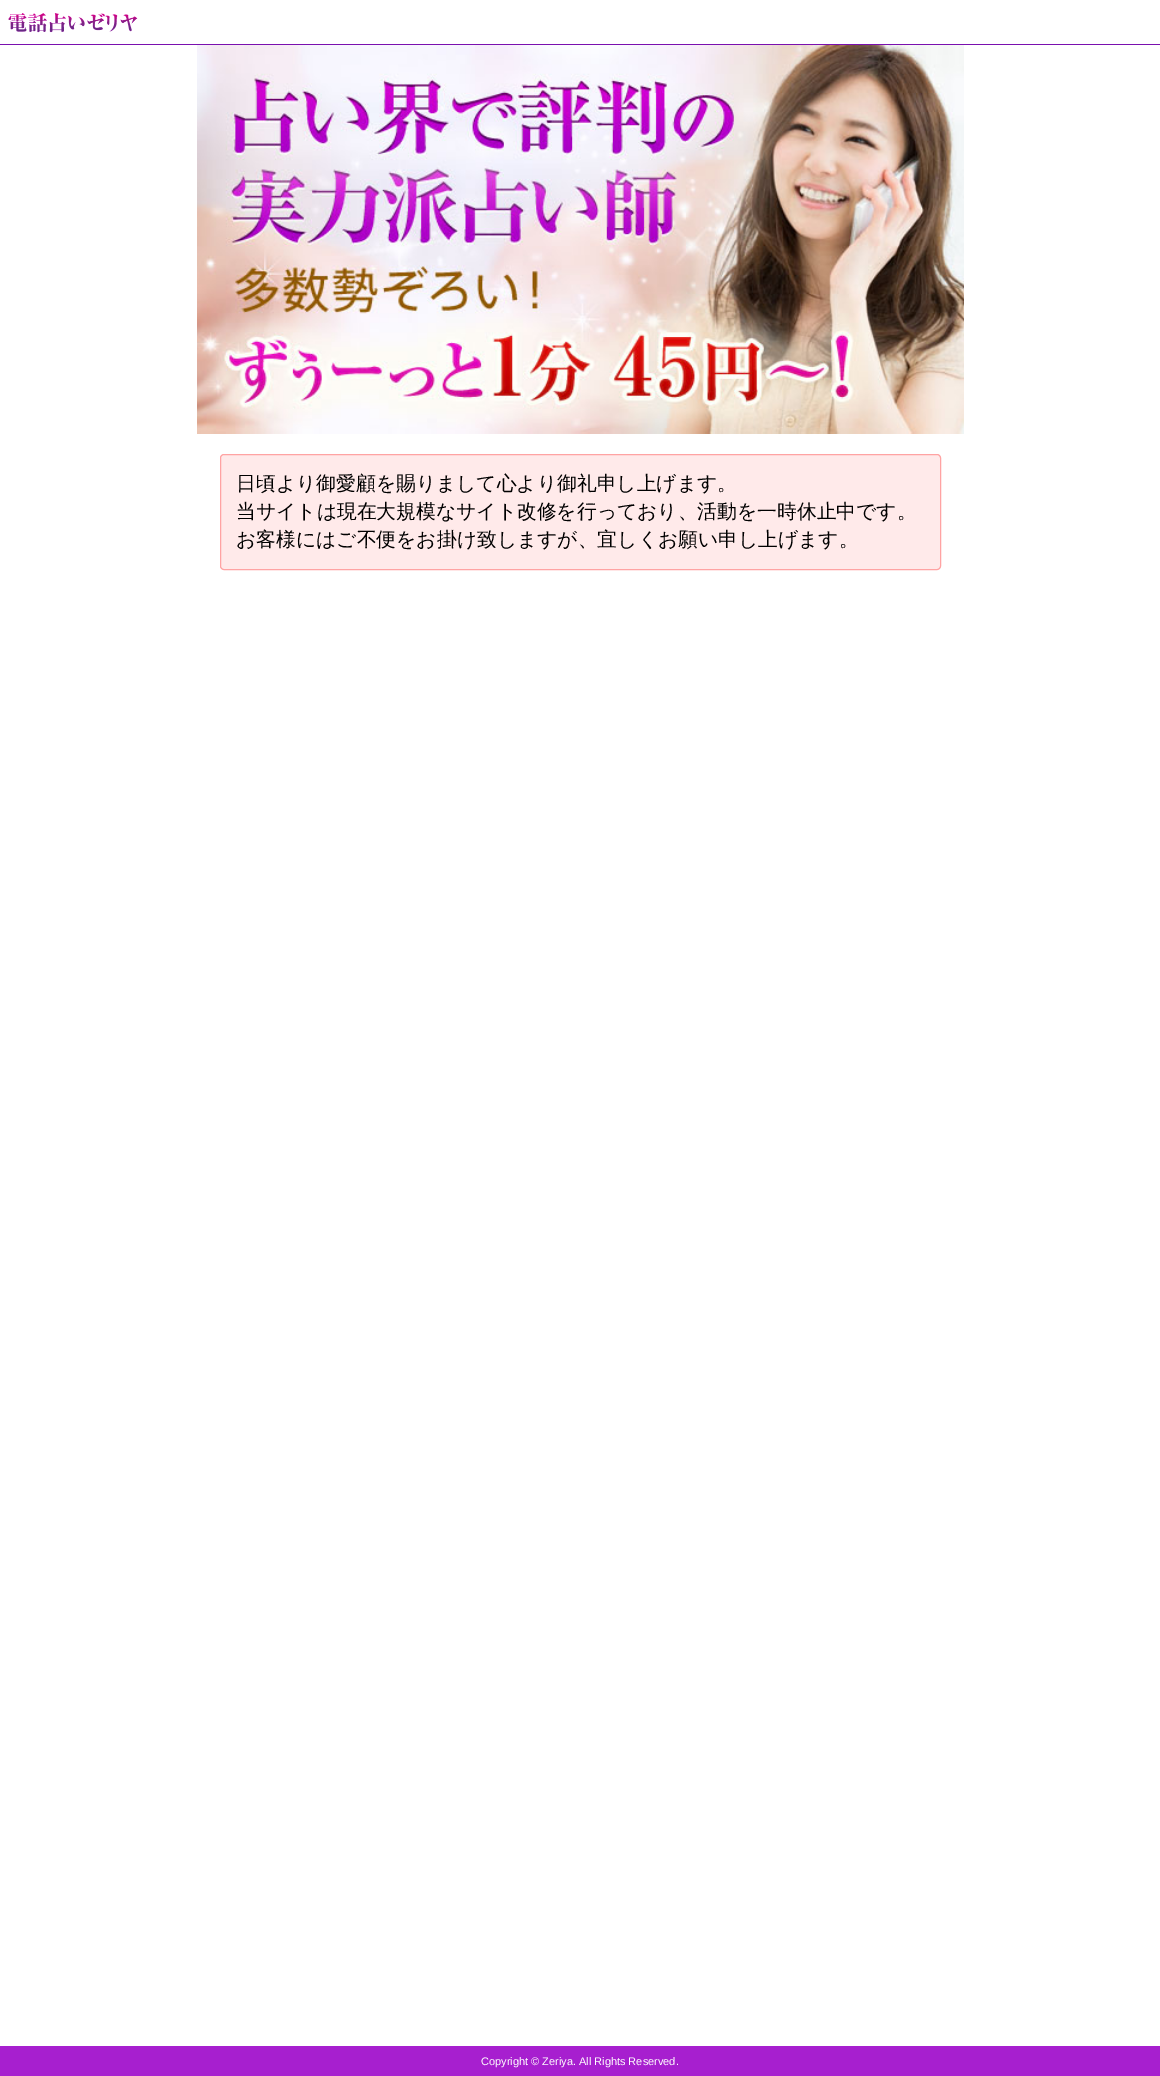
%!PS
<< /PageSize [1160 2076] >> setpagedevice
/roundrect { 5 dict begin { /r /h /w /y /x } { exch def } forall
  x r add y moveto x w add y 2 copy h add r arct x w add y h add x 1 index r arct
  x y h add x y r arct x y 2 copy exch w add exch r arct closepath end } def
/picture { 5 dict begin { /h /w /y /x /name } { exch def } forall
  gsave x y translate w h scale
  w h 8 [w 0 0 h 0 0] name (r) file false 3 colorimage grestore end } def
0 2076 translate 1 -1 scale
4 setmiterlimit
1 setgray
0 0 1160 2076 rectfill
0.478 0.063 0.686 setrgbcolor
0 44 1160 1 rectfill
(img1.rgb) 8 13 130 20 picture
(img2.rgb) 197 45 767 389 picture
1 0.918 0.918 setrgbcolor
220.5 454.5 720 115 3.5 roundrect gsave fill grestore
1 0.639 0.639 setrgbcolor
stroke
/WenQuanYiZenHei-Medium [19.8 0 0 -19.8 0 0] selectfont
0 setgray
236 490 moveto (日頃より御愛顧を賜りまして心より御礼申し上げます。) show
236 518 moveto (当サイトは現在大規模なサイト改修を行っており、活動を一時休止中です。) show
236 546 moveto (お客様にはご不便をお掛け致しますが、宜しくお願い申し上げます。) show
0.655 0.122 0.812 setrgbcolor
0 2046 1160 30 rectfill
/LiberationSans-Regular [11 0 0 -11 0 0] selectfont
1 setgray
481 2065 moveto (Copyright © Zeriya. All Rights Reserved.) show
showpage
